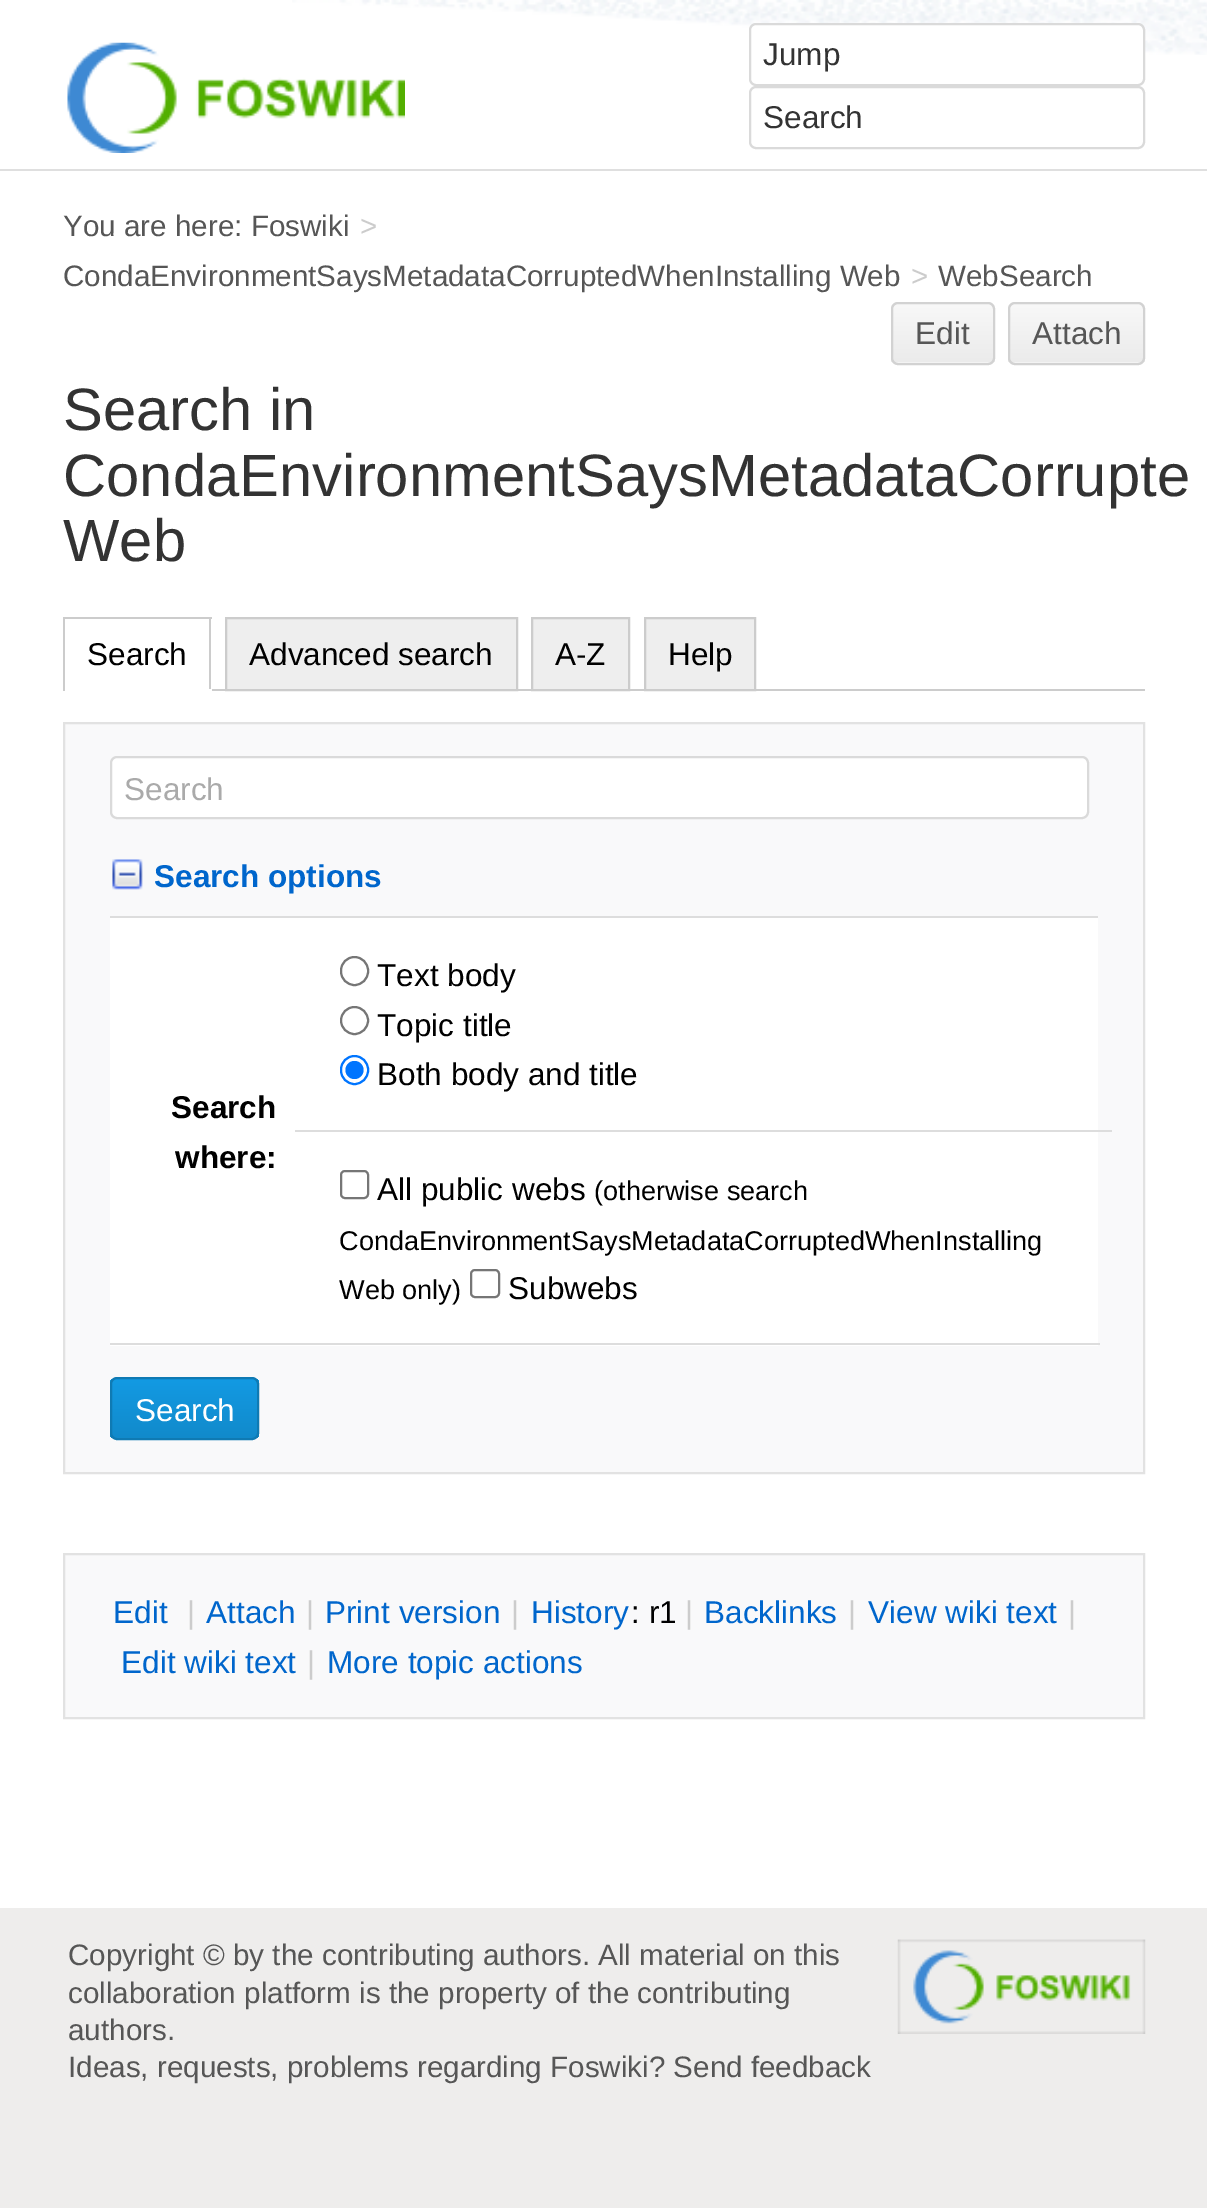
%!PS
<< /PageSize [1207 2208] >> setpagedevice
/roundrect { 5 dict begin { /r /h /w /y /x } { exch def } forall
  x r add y moveto x w add y 2 copy h add r arct x w add y h add x 1 index r arct
  x y h add x y r arct x y 2 copy exch w add exch r arct closepath end } def
/picture { 5 dict begin { /h /w /y /x /name } { exch def } forall
  gsave x y translate w h scale
  w h 8 [w 0 0 h 0 0] name (r) file false 3 colorimage grestore end } def
0 2208 translate 1 -1 scale
4 setmiterlimit
0.933 0.929 0.925 setrgbcolor
0 0 1207 2208 rectfill
0.875 setgray
0 169 1207 2 rectfill
1 setgray
0 0 1207 169 rectfill
(img1.rgb) 292 0 915 55 picture
(img2.rgb) 67 42 338 111 picture
750 24 394 61 6 roundrect gsave fill grestore
0.855 setgray
2 setlinewidth
stroke
/LiberationSans-Regular [31.5 0 0 -31.5 0 0] selectfont
0.2 setgray
763 65 moveto (Jump) show
0.855 setgray
750 87 394 61 6 roundrect stroke
0.2 setgray
763 128 moveto (Search) show
1 setgray
0 171 1207 1737 rectfill
/LiberationSans-Regular [29.6 0 0 -29.6 0 0] selectfont
0.337 setgray
63 236 moveto (You are here: Foswiki) show
0.8 setgray
360 236 moveto (>) show
0.337 setgray
63 286 moveto (CondaEnvironmentSaysMetadataCorruptedWhenInstalling Web) show
0.8 setgray
911 286 moveto (>) show
0.337 setgray
938 286 moveto (WebSearch) show
0.953 setgray
891 302 104 63 7 roundrect fill
gsave
891 302 104 63 7 roundrect clip newpath
gsave newpath 891 304 moveto 995 304 lineto 995 362 lineto 891 362 lineto closepath clip newpath
<< /ShadingType 2 /ColorSpace /DeviceRGB /Coords [943 304 943 362] /Extend [true true] /Function << /FunctionType 2 /Domain [0 1] /C0 [0.973 0.973 0.973] /C1 [0.922 0.922 0.922] /N 1 >> >> shfill grestore
grestore
0.824 setgray
892 303 102 61 6 roundrect stroke
/LiberationSans-Regular [31.5 0 0 -31.5 0 0] selectfont
0.337 setgray
915 344 moveto (Edit) show
0.953 setgray
1008 302 137 63 7 roundrect fill
gsave
1008 302 137 63 7 roundrect clip newpath
gsave newpath 1008 304 moveto 1145 304 lineto 1145 362 lineto 1008 362 lineto closepath clip newpath
<< /ShadingType 2 /ColorSpace /DeviceRGB /Coords [1077 304 1077 362] /Extend [true true] /Function << /FunctionType 2 /Domain [0 1] /C0 [0.973 0.973 0.973] /C1 [0.922 0.922 0.922] /N 1 >> >> shfill grestore
grestore
0.824 setgray
1009 303 135 61 6 roundrect stroke
0.337 setgray
1032 344 moveto (Attach) show
/LiberationSans-Regular [59.8 0 0 -59.8 0 0] selectfont
0.2 setgray
63 430 moveto (Search in) show
63 496 moveto (CondaEnvironmentSaysMetadataCorrupte) show
63 561 moveto (Web) show
0.8 setgray
63 617 149 2 rectfill
209 617 2 74 rectfill
1 setgray
209 689 3 2 rectfill
0.8 setgray
63 617 2 74 rectfill
/LiberationSans-Regular [31.5 0 0 -31.5 0 0] selectfont
0 setgray
87 665 moveto (Search) show
0.933 setgray
newpath 226 618 moveto 517 618 lineto 517 690 lineto 226 690 lineto closepath gsave fill grestore
0.8 setgray
stroke
0 setgray
249 665 moveto (Advanced search) show
0.933 setgray
newpath 532 618 moveto 629 618 lineto 629 690 lineto 532 690 lineto closepath gsave fill grestore
0.8 setgray
stroke
0 setgray
555 665 moveto (A-Z) show
0.933 setgray
newpath 645 618 moveto 755 618 lineto 755 690 lineto 645 690 lineto closepath gsave fill grestore
0.8 setgray
stroke
0 setgray
668 665 moveto (Help) show
0.8 setgray
212 689 933 2 rectfill
0.976 0.976 0.98 setrgbcolor
newpath 64 723 moveto 1144 723 lineto 1144 1473 lineto 64 1473 lineto closepath gsave fill grestore
0.886 setgray
stroke
1 setgray
111 757 977 61 6 roundrect gsave fill grestore
0.855 setgray
stroke
0.667 setgray
124 800 moveto (Search) show
(img3.rgb) 112 859 31 31 picture
/LiberationSans-Bold [31.5 0 0 -31.5 0 0] selectfont
0 0.4 0.8 setrgbcolor
154 887 moveto (Search options) show
0.867 setgray
110 916 988 2 rectfill
1 setgray
110 918 988 428 rectfill
0 setgray
171 1118 moveto (Search) show
175 1168 moveto (where:) show
0.867 setgray
110 1343 990 2 rectfill
0.463 setgray
341 957 27 28 13.5 roundrect stroke
/LiberationSans-Regular [31.5 0 0 -31.5 0 0] selectfont
0 setgray
377 986 moveto (Text body) show
0.463 setgray
newpath 354.5 1020.5 13.5 0 360 arc closepath stroke
0 setgray
377 1036 moveto (Topic title) show
0 0.459 1 setrgbcolor
341 1056 27 28 13.5 roundrect stroke
newpath 354.5 1070 9 0 360 arc closepath fill
0 setgray
377 1085 moveto (Both body and title) show
0.867 setgray
295 1130 817 2 rectfill
0.463 setgray
341 1171 27 27 4 roundrect stroke
0 setgray
377 1200 moveto (All public webs) show
/LiberationSans-Regular [27.1 0 0 -27.1 0 0] selectfont
594 1200 moveto (\(otherwise search) show
339 1250 moveto (CondaEnvironmentSaysMetadataCorruptedWhenInstalling) show
339 1299 moveto (Web only\)) show
0.463 setgray
471 1270 28 27 4 roundrect stroke
/LiberationSans-Regular [31.5 0 0 -31.5 0 0] selectfont
0 setgray
508 1299 moveto (Subwebs) show
gsave
110 1377 149 63 7 roundrect clip newpath
gsave newpath 110 1379 moveto 259 1379 lineto 259 1438 lineto 110 1438 lineto closepath clip newpath
<< /ShadingType 2 /ColorSpace /DeviceRGB /Coords [185 1379 185 1438] /Extend [true true] /Function << /FunctionType 2 /Domain [0 1] /C0 [0.075 0.604 0.89] /C1 [0.067 0.541 0.796] /N 1 >> >> shfill grestore
grestore
0.059 0.478 0.702 setrgbcolor
111 1378 147 61 6 roundrect stroke
1 setgray
135 1421 moveto (Search) show
0.976 0.976 0.98 setrgbcolor
newpath 64 1554 moveto 1144 1554 lineto 1144 1718 lineto 64 1718 lineto closepath gsave fill grestore
0.886 setgray
stroke
0 0.4 0.8 setrgbcolor
113 1623 moveto (Edit) show
0.8 setgray
187 1623 moveto (|) show
0 0.4 0.8 setrgbcolor
206 1623 moveto (Attach) show
0.8 setgray
306 1623 moveto (|) show
0 0.4 0.8 setrgbcolor
325 1623 moveto (Print version) show
0.8 setgray
511 1623 moveto (|) show
0 0.4 0.8 setrgbcolor
531 1623 moveto (History) show
0 setgray
631 1623 moveto (: r1) show
0.8 setgray
685 1623 moveto (|) show
0 0.4 0.8 setrgbcolor
704 1623 moveto (Backlinks) show
0.8 setgray
848 1623 moveto (|) show
0 0.4 0.8 setrgbcolor
868 1623 moveto (View wiki text) show
0.8 setgray
1068 1623 moveto (|) show
0 0.4 0.8 setrgbcolor
121 1673 moveto (Edit wiki text) show
0.8 setgray
307 1673 moveto (|) show
0 0.4 0.8 setrgbcolor
327 1673 moveto (More topic actions) show
/LiberationSans-Regular [29.6 0 0 -29.6 0 0] selectfont
0.337 setgray
68 1965 moveto (Copyright © by the contributing authors. All material on this) show
(img4.rgb) 897 1939 249 95 picture
68 2003 moveto (collaboration platform is the property of the contributing) show
68 2040 moveto (authors.) show
68 2077 moveto (Ideas, requests, problems regarding Foswiki? Send feedback) show
showpage
